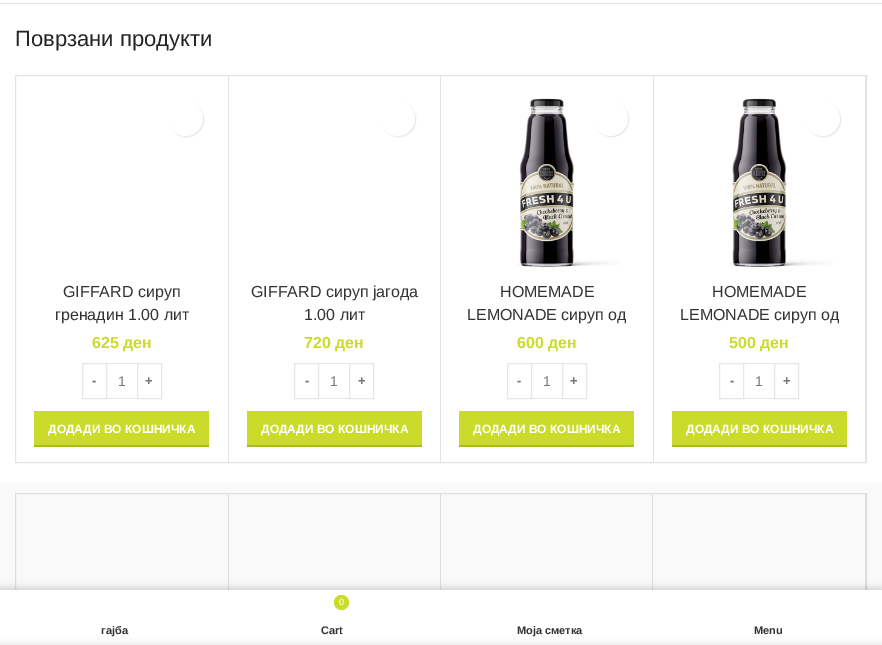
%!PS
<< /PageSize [882 645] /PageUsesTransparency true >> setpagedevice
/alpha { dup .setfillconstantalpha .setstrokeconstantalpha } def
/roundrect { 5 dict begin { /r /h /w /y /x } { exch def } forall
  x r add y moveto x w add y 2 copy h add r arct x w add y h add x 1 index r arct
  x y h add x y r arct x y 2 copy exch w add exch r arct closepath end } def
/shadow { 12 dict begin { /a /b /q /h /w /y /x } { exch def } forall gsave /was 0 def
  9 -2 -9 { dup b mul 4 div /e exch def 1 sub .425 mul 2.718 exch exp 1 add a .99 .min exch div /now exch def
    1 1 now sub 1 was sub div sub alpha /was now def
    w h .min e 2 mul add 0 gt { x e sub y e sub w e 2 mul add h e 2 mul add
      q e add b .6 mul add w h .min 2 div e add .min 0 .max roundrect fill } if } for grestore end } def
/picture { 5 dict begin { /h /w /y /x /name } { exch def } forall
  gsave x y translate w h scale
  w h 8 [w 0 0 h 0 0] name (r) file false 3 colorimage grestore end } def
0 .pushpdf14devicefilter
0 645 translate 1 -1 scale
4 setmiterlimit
1 setgray
0 0 882 645 rectfill
0.894 setgray
0 3 882 1 rectfill
/LiberationSans-Regular [22 0 0 -22 0 0] selectfont
0.141 setgray
15 46 moveto (Поврзани продукти) show
0.894 setgray
15.5 75.5 851 387 rectstroke
228 76 1 386 rectfill
0 setgray
169 102 35 35 17.5 0.5 0.1 shadow
1 setgray
newpath 185.5 118.5 17.5 0 360 arc closepath fill
/LiberationSans-Regular [16 0 0 -16 0 0] selectfont
0.2 setgray
63 297 moveto (GIFFARD сируп) show
55 320 moveto (гренадин 1.00 лит) show
/LiberationSans-Bold [16 0 0 -16 0 0] selectfont
0.796 0.859 0.165 setrgbcolor
92 348 moveto (625 ден) show
0.902 setgray
82.5 363.5 24 35 rectstroke
/LiberationSans-Bold [13 0 0 -13 0 0] selectfont
0.467 setgray
92 385 moveto (-) show
0.902 setgray
107 363 30 1 rectfill
107 398 30 1 rectfill
/LiberationSans-Regular [14 0 0 -14 0 0] selectfont
0.467 setgray
118 386 moveto (1) show
0.902 setgray
137.5 363.5 24 35 rectstroke
/LiberationSans-Bold [13 0 0 -13 0 0] selectfont
0.467 setgray
145 385 moveto (+) show
0.796 0.859 0.165 setrgbcolor
34 411 175 34 rectfill
0.678 0.729 0.141 setrgbcolor
34 445 175 2 rectfill
/LiberationSans-Bold [12 0 0 -12 0 0] selectfont
1 setgray
48 433 moveto (ДОДАДИ ВО КОШНИЧКА) show
0.894 setgray
440 76 1 386 rectfill
0 setgray
381 102 35 35 17.5 0.5 0.1 shadow
1 setgray
newpath 397.5 118.5 17.5 0 360 arc closepath fill
/LiberationSans-Regular [16 0 0 -16 0 0] selectfont
0.2 setgray
251 297 moveto (GIFFARD сируп јагода) show
304 320 moveto (1.00 лит) show
/LiberationSans-Bold [16 0 0 -16 0 0] selectfont
0.796 0.859 0.165 setrgbcolor
304 348 moveto (720 ден) show
0.902 setgray
294.5 363.5 24 35 rectstroke
/LiberationSans-Bold [13 0 0 -13 0 0] selectfont
0.467 setgray
305 385 moveto (-) show
0.902 setgray
319 363 30 1 rectfill
319 398 30 1 rectfill
/LiberationSans-Regular [14 0 0 -14 0 0] selectfont
0.467 setgray
330 386 moveto (1) show
0.902 setgray
349.5 363.5 24 35 rectstroke
/LiberationSans-Bold [13 0 0 -13 0 0] selectfont
0.467 setgray
358 385 moveto (+) show
0.796 0.859 0.165 setrgbcolor
247 411 175 34 rectfill
0.678 0.729 0.141 setrgbcolor
247 445 175 2 rectfill
/LiberationSans-Bold [12 0 0 -12 0 0] selectfont
1 setgray
261 433 moveto (ДОДАДИ ВО КОШНИЧКА) show
0.894 setgray
653 76 1 386 rectfill
(img1.rgb) 516 98 105 169 picture
0 setgray
594 102 35 35 17.5 0.5 0.1 shadow
1 setgray
newpath 610.5 118.5 17.5 0 360 arc closepath fill
/LiberationSans-Regular [16 0 0 -16 0 0] selectfont
0.2 setgray
500 297 moveto (HOMEMADE) show
467 320 moveto (LEMONADE сируп од) show
/LiberationSans-Bold [16 0 0 -16 0 0] selectfont
0.796 0.859 0.165 setrgbcolor
517 348 moveto (600 ден) show
0.902 setgray
507.5 363.5 24 35 rectstroke
/LiberationSans-Bold [13 0 0 -13 0 0] selectfont
0.467 setgray
517 385 moveto (-) show
0.902 setgray
532 363 30 1 rectfill
532 398 30 1 rectfill
/LiberationSans-Regular [14 0 0 -14 0 0] selectfont
0.467 setgray
543 386 moveto (1) show
0.902 setgray
562.5 363.5 24 35 rectstroke
/LiberationSans-Bold [13 0 0 -13 0 0] selectfont
0.467 setgray
570 385 moveto (+) show
0.796 0.859 0.165 setrgbcolor
459 411 175 34 rectfill
0.678 0.729 0.141 setrgbcolor
459 445 175 2 rectfill
/LiberationSans-Bold [12 0 0 -12 0 0] selectfont
1 setgray
473 433 moveto (ДОДАДИ ВО КОШНИЧКА) show
0.894 setgray
865 76 1 386 rectfill
(img2.rgb) 729 98 104 169 picture
0 setgray
806 102 35 35 17.5 0.5 0.1 shadow
1 setgray
newpath 822.5 118.5 17.5 0 360 arc closepath fill
/LiberationSans-Regular [16 0 0 -16 0 0] selectfont
0.2 setgray
712 297 moveto (HOMEMADE) show
680 320 moveto (LEMONADE сируп од) show
/LiberationSans-Bold [16 0 0 -16 0 0] selectfont
0.796 0.859 0.165 setrgbcolor
729 348 moveto (500 ден) show
0.902 setgray
719.5 363.5 24 35 rectstroke
/LiberationSans-Bold [13 0 0 -13 0 0] selectfont
0.467 setgray
730 385 moveto (-) show
0.902 setgray
744 363 30 1 rectfill
744 398 30 1 rectfill
/LiberationSans-Regular [14 0 0 -14 0 0] selectfont
0.467 setgray
755 386 moveto (1) show
0.902 setgray
774.5 363.5 24 35 rectstroke
/LiberationSans-Bold [13 0 0 -13 0 0] selectfont
0.467 setgray
783 385 moveto (+) show
0.796 0.859 0.165 setrgbcolor
672 411 175 34 rectfill
0.678 0.729 0.141 setrgbcolor
672 445 175 2 rectfill
/LiberationSans-Bold [12 0 0 -12 0 0] selectfont
1 setgray
686 433 moveto (ДОДАДИ ВО КОШНИЧКА) show
0.976 setgray
0 483 882 107 rectfill
0.875 setgray
15.5 493.5 851 101 rectstroke
228 494 1 100 rectfill
440 494 1 100 rectfill
652 494 1 100 rectfill
865 494 1 100 rectfill
0 setgray
0 590 882 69 0 4.5 0.12 shadow
0 590 882 55 0 4.5 0.12 shadow
1 setgray
0 590 882 55 rectfill
/LiberationSans-Bold [11 0 0 -11 0 0] selectfont
0.2 setgray
101 634 moveto (гајба) show
0.796 0.859 0.165 setrgbcolor
newpath 341.5 602.5 7.5 0 360 arc closepath fill
/LiberationSans-Regular [9 0 0 -9 0 0] selectfont
1 setgray
339 605 moveto (0) show
/LiberationSans-Bold [11 0 0 -11 0 0] selectfont
0.2 setgray
321 634 moveto (Cart) show
517 634 moveto (Моја сметка) show
754 634 moveto (Menu) show
0 setgray
0 645 882 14 0 4.5 0.14 shadow
.poppdf14devicefilter showpage
